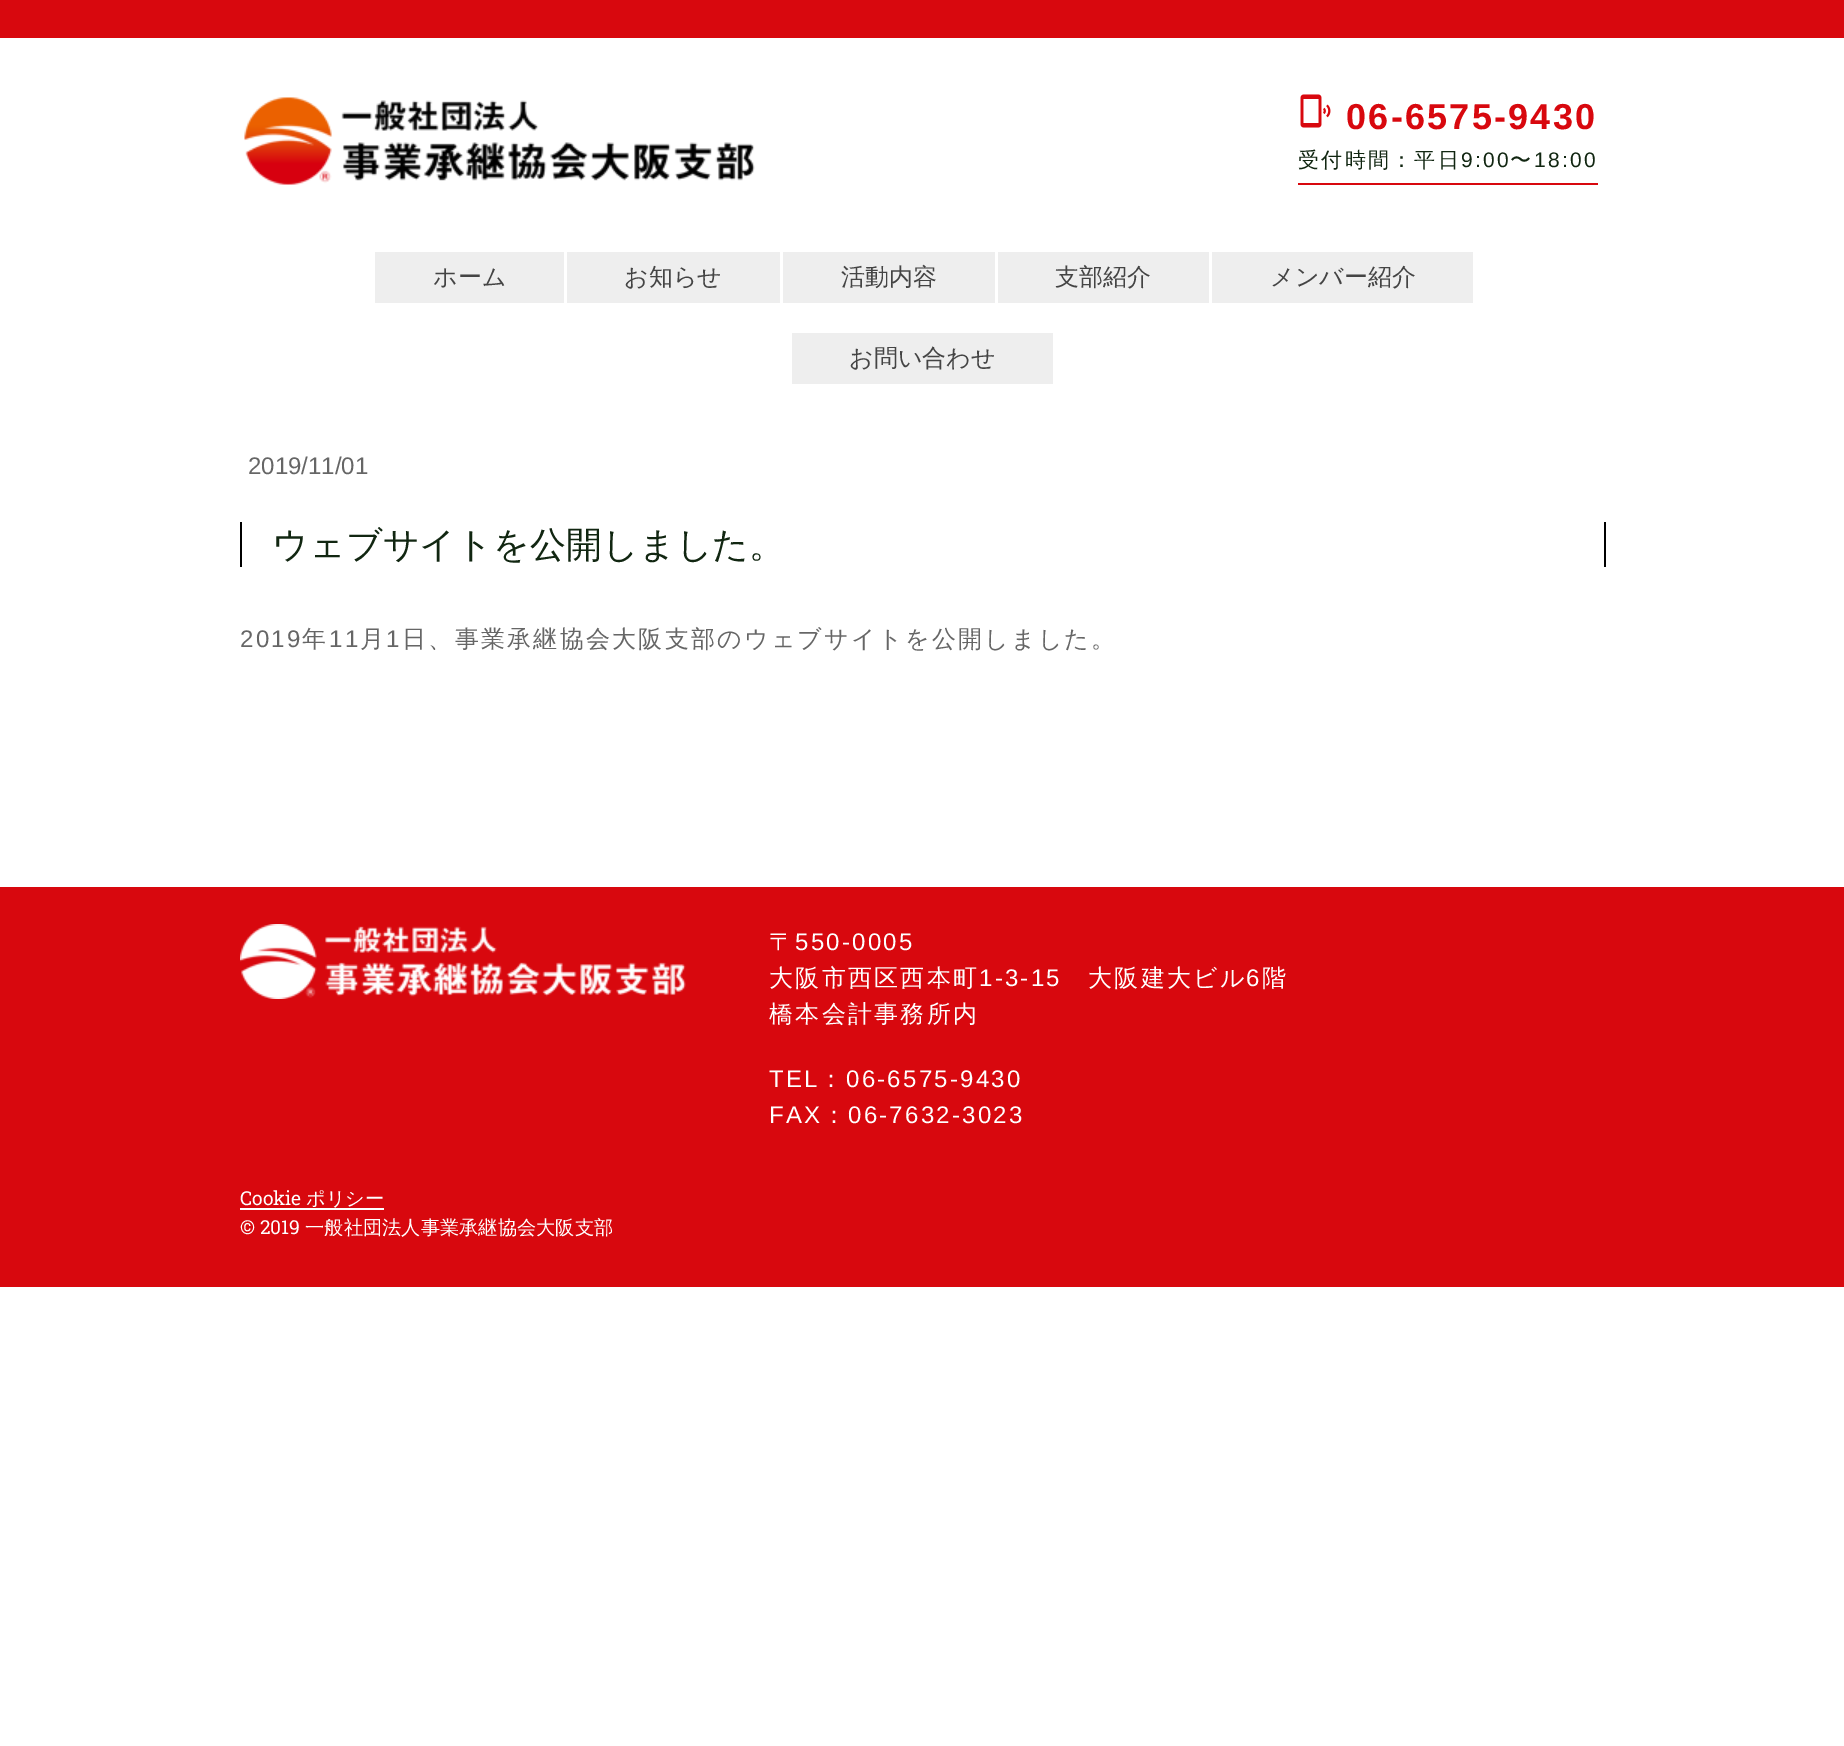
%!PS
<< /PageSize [1844 1746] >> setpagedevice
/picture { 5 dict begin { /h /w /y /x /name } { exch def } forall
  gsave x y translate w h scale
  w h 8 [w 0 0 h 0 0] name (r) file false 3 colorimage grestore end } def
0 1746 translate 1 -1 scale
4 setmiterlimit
1 setgray
0 0 1844 1746 rectfill
0.847 0.031 0.055 setrgbcolor
0 0 1844 38 rectfill
(img1.rgb) 244 97 511 88 picture
1298 183 300 2 rectfill
(img2.rgb) 1300 94 31 34 picture
/LiberationSans-Bold [36 0 0 -36 0 0] selectfont
1346 129 moveto 2.25 0 (06-6575-9430) ashow
/WenQuanYiZenHei-Medium [21 0 0 -21 0 0] selectfont
0.067 0.149 0.067 setrgbcolor
1298 167 moveto 2.25 0 (受付時間：平日) ashow
/LiberationSans-Regular [21 0 0 -21 0 0] selectfont
1461 167 moveto 2.25 0 (9:00) ashow
/WenQuanYiZenHei-Medium [21 0 0 -21 0 0] selectfont
1510 167 moveto 2.25 0 (〜) ashow
/LiberationSans-Regular [21 0 0 -21 0 0] selectfont
1534 167 moveto 2.25 0 (18:00) ashow
0.933 setgray
375 252 189 51 rectfill
/WenQuanYiZenHei-Medium [24 0 0 -24 0 0] selectfont
0.267 setgray
433 285 moveto (ホーム) show
0.933 setgray
567 252 213 51 rectfill
0.267 setgray
624 285 moveto (お知らせ) show
0.933 setgray
783 252 212 51 rectfill
0.267 setgray
841 285 moveto (活動内容) show
0.933 setgray
998 252 211 51 rectfill
0.267 setgray
1055 285 moveto (支部紹介) show
0.933 setgray
1212 252 261 51 rectfill
0.267 setgray
1270 285 moveto (メンバー紹介) show
0.933 setgray
792 333 261 51 rectfill
0.267 setgray
849 366 moveto (お問い合わせ) show
/LiberationSans-Regular [24 0 0 -24 0 0] selectfont
0.4 setgray
248 474 moveto (2019/11/01) show
0 setgray
1604 522 2 45 rectfill
240 522 2 45 rectfill
/WenQuanYiZenHei-Medium [36 0 0 -36 0 0] selectfont
0.067 0.149 0.067 setrgbcolor
272 557 moveto (ウェブサイトを公開しました。) show
/LiberationSans-Regular [24 0 0 -24 0 0] selectfont
0.4 setgray
240 647 moveto 2.25 0 (2019) ashow
/WenQuanYiZenHei-Medium [24 0 0 -24 0 0] selectfont
302 647 moveto 2.25 0 (年) ashow
/LiberationSans-Regular [24 0 0 -24 0 0] selectfont
329 647 moveto 2.25 0 (11) ashow
/WenQuanYiZenHei-Medium [24 0 0 -24 0 0] selectfont
360 647 moveto 2.25 0 (月) ashow
/LiberationSans-Regular [24 0 0 -24 0 0] selectfont
386 647 moveto 2.25 0 (1) ashow
/WenQuanYiZenHei-Medium [24 0 0 -24 0 0] selectfont
402 647 moveto 2.25 0 (日、事業承継協会大阪支部のウェブサイトを公開しました。) ashow
0.847 0.031 0.055 setrgbcolor
0 887 1844 400 rectfill
(img3.rgb) 240 924 446 75 picture
1 setgray
769 950 moveto 2.25 0 (〒) ashow
/LiberationSans-Regular [24 0 0 -24 0 0] selectfont
795 950 moveto 2.25 0 (550-0005) ashow
/WenQuanYiZenHei-Medium [24 0 0 -24 0 0] selectfont
769 986 moveto 2.25 0 (大阪市西区西本町) ashow
/LiberationSans-Regular [24 0 0 -24 0 0] selectfont
979 986 moveto 2.25 0 (1-3-15) ashow
/WenQuanYiZenHei-Medium [24 0 0 -24 0 0] selectfont
1088 986 moveto 2.25 0 (大阪建大ビル) ashow
/LiberationSans-Regular [24 0 0 -24 0 0] selectfont
1246 986 moveto 2.25 0 (6) ashow
/WenQuanYiZenHei-Medium [24 0 0 -24 0 0] selectfont
1262 986 moveto 2.25 0 (階) ashow
769 1022 moveto 2.25 0 (橋本会計事務所内) ashow
/LiberationSans-Regular [24 0 0 -24 0 0] selectfont
769 1087 moveto 2.25 0 (TEL) ashow
/WenQuanYiZenHei-Medium [24 0 0 -24 0 0] selectfont
819 1087 moveto 2.25 0 (：) ashow
/LiberationSans-Regular [24 0 0 -24 0 0] selectfont
846 1087 moveto 2.25 0 (06-6575-9430) ashow
769 1123 moveto 2.25 0 (FAX) ashow
/WenQuanYiZenHei-Medium [24 0 0 -24 0 0] selectfont
822 1123 moveto 2.25 0 (：) ashow
/LiberationSans-Regular [24 0 0 -24 0 0] selectfont
848 1123 moveto 2.25 0 (06-7632-3023) ashow
/RobotoSlab-Regular [19.25 0 0 -19.25 0 0] selectfont
240 1205 moveto (Cookie) show
/WenQuanYiZenHei-Medium [19.25 0 0 -19.25 0 0] selectfont
306 1205 moveto (ポリシー) show
240 1208 144 2 rectfill
/RobotoSlab-Regular [19.25 0 0 -19.25 0 0] selectfont
240 1234 moveto (© 2019) show
/WenQuanYiZenHei-Medium [19.25 0 0 -19.25 0 0] selectfont
305 1234 moveto (一般社団法人事業承継協会大阪支部) show
showpage
